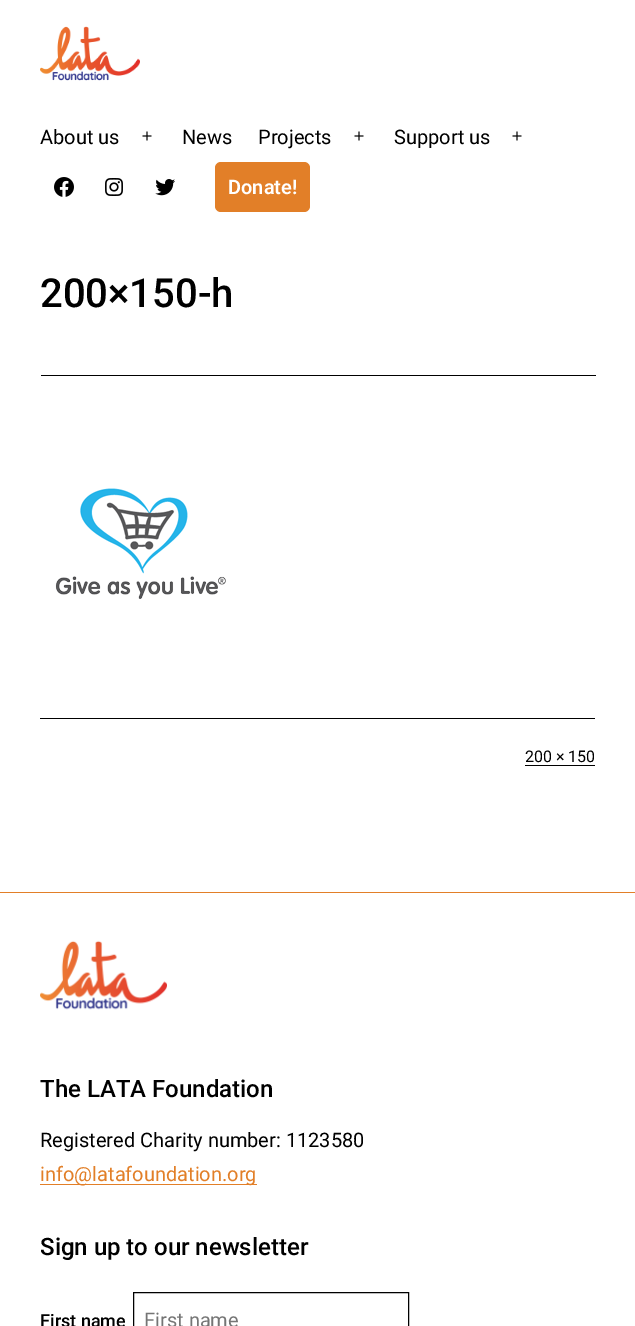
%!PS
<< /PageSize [635 1326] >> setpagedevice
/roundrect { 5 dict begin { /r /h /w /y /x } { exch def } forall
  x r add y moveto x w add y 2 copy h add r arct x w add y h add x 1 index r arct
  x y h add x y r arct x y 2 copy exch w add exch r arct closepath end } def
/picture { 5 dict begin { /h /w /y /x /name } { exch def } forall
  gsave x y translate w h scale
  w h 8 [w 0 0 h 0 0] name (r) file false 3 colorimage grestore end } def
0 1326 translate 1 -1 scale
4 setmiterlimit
1 setgray
0 0 635 1326 rectfill
(img1.rgb) 40 26 100 55 picture
/Roboto-Regular [20 0 0 -20 0 0] selectfont
0 setgray
40 144 moveto (About us) show
(img2.rgb) 142 131 10 10 picture
182 144 moveto (News) show
258 144 moveto (Projects) show
(img2.rgb) 354 131 10 10 picture
394 144 moveto (Support us) show
(img2.rgb) 512 131 10 10 picture
(img3.rgb) 54 177 20 20 picture
(img4.rgb) 105 178 18 18 picture
(img5.rgb) 155 179 20 17 picture
0.886 0.498 0.157 setrgbcolor
215 162 95 50 6 roundrect fill
/Roboto-SemiBold [20 0 0 -20 0 0] selectfont
1 setgray
228 194 moveto (Donate!) show
/Roboto-Medium [40 0 0 -40 0 0] selectfont
0 setgray
40 307 moveto (200×150-h) show
41 375 555 1 rectfill
(img6.rgb) 55 488 171 111 picture
40 718 555 1 rectfill
/Roboto-Regular [16 0 0 -16 0 0] selectfont
525 762 moveto (200 × 150) show
525 765 70 1 rectfill
0.886 0.498 0.157 setrgbcolor
0 892 635 1 rectfill
(img7.rgb) 40 940 127 70 picture
/Roboto-Medium [24 0 0 -24 0 0] selectfont
0 setgray
40 1097 moveto (The LATA Foundation) show
/Roboto-Regular [20 0 0 -20 0 0] selectfont
40 1147 moveto (Registered Charity number: 1123580) show
0.886 0.498 0.157 setrgbcolor
40 1184 217 1 rectfill
40 1181 moveto (info@latafoundation.org) show
/Roboto-Medium [24 0 0 -24 0 0] selectfont
0 setgray
40 1255 moveto (Sign up to our newsletter) show
/Roboto-Medium [18 0 0 -18 0 0] selectfont
40 1327 moveto (First name) show
133.5 1292.5 275 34 rectstroke
/Roboto-Regular [20 0 0 -20 0 0] selectfont
0.459 setgray
144 1327 moveto (First name) show
showpage
